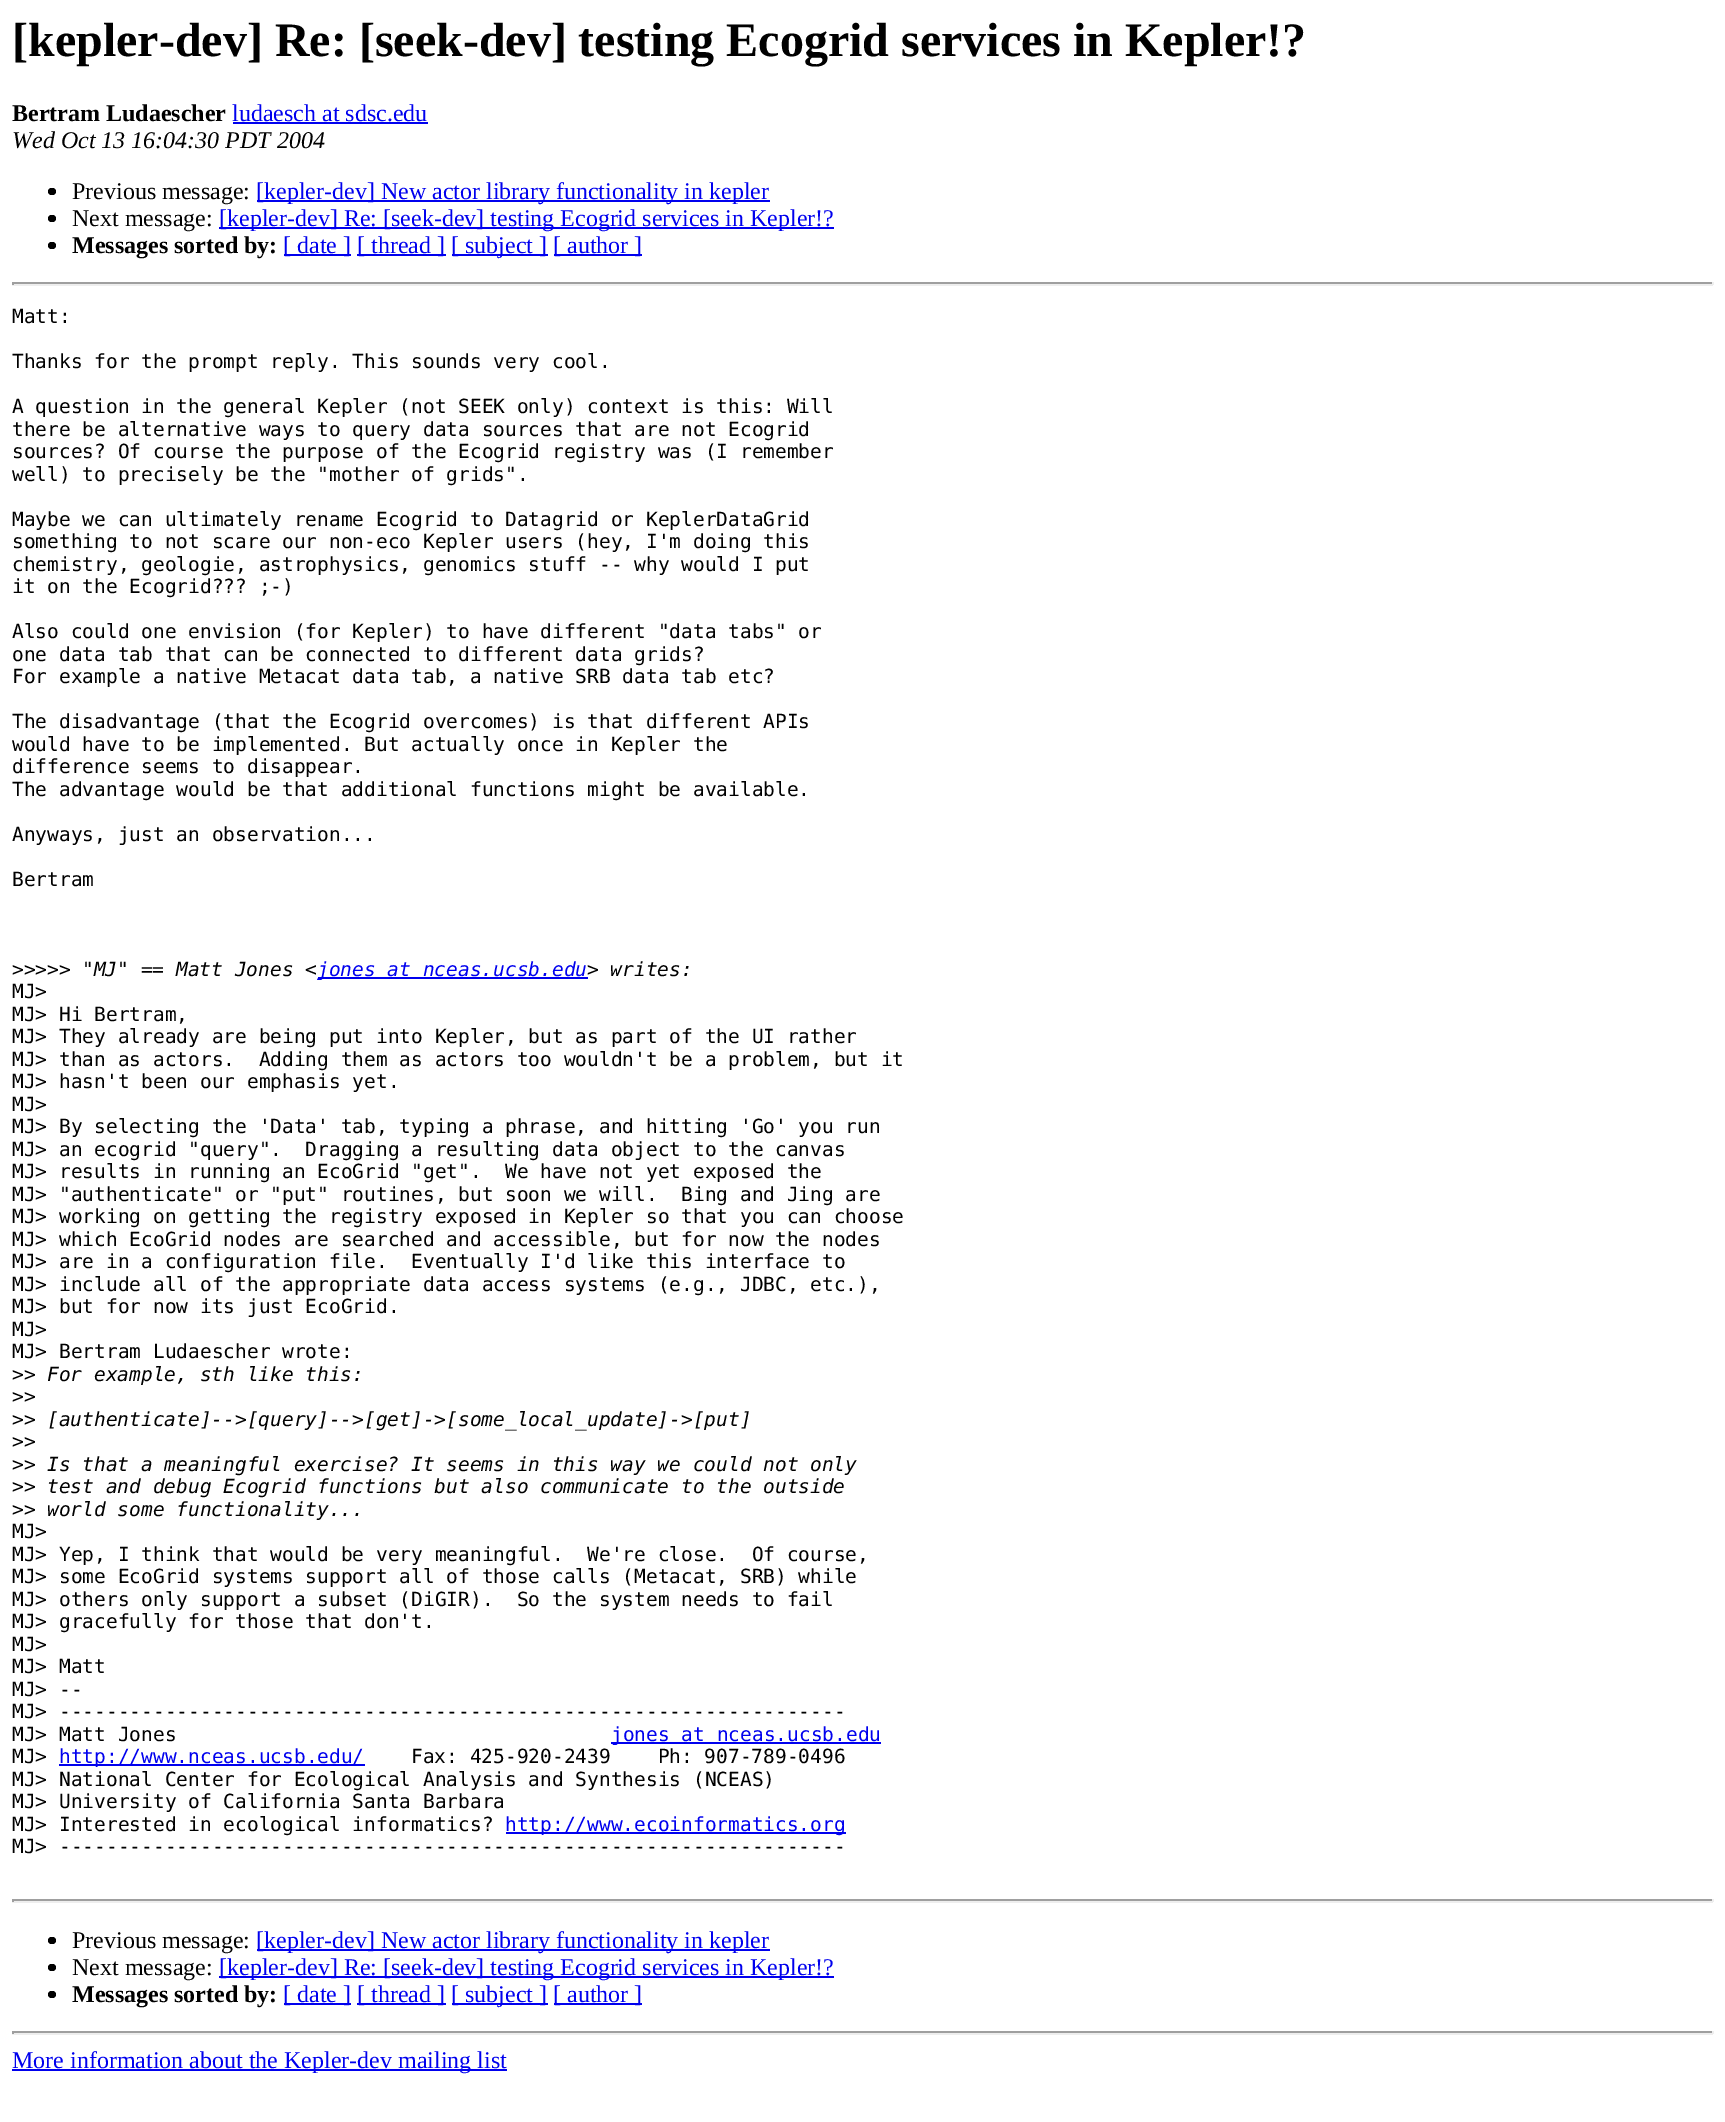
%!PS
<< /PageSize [1725 2122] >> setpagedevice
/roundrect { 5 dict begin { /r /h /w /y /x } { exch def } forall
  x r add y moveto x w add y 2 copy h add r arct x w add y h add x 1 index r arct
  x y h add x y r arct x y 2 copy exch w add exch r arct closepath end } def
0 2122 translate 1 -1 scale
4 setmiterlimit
1 setgray
0 0 1725 2122 rectfill
/LiberationSerif-Bold [48 0 0 -48 0 0] selectfont
0 setgray
12 56 moveto ([kepler-dev] Re: [seek-dev] testing Ecogrid services in Kepler!?) show
/LiberationSerif-Bold [24 0 0 -24 0 0] selectfont
12 121 moveto (Bertram Ludaescher) show
/LiberationSerif-Regular [24 0 0 -24 0 0] selectfont
0 0 0.933 setrgbcolor
232 121 moveto (ludaesch at sdsc.edu) show
233 122 195 2 rectfill
/LiberationSerif-Italic [24 0 0 -24 0 0] selectfont
0 setgray
12 148 moveto (Wed Oct 13 16:04:30 PDT 2004) show
48 188 8 7 3.5 roundrect fill
/LiberationSerif-Regular [24 0 0 -24 0 0] selectfont
72 199 moveto (Previous message:) show
0 0 0.933 setrgbcolor
257 200 513 2 rectfill
256 199 moveto ([kepler-dev] New actor library functionality in kepler) show
0 setgray
48 215 8 7 3.5 roundrect fill
72 226 moveto (Next message:) show
0 0 0.933 setrgbcolor
219 227 615 2 rectfill
219 226 moveto ([kepler-dev] Re: [seek-dev] testing Ecogrid services in Kepler!?) show
0 setgray
48 242 8 7 3.5 roundrect fill
/LiberationSerif-Bold [24 0 0 -24 0 0] selectfont
72 253 moveto (Messages sorted by:) show
0 0 0.933 setrgbcolor
284 254 67 2 rectfill
/LiberationSerif-Regular [24 0 0 -24 0 0] selectfont
283 253 moveto ([ date ]) show
357 254 89 2 rectfill
357 253 moveto ([ thread ]) show
452 254 96 2 rectfill
451 253 moveto ([ subject ]) show
554 254 88 2 rectfill
553 253 moveto ([ author ]) show
0.624 setgray
12 282 1701 2 rectfill
0.933 setgray
1712 282 2 3 rectfill
12 284 1701 2 rectfill
0.624 setgray
12 282 2 3 rectfill
/DejaVuSansMono-Regular [19.5 0 0 -19.5 0 0] selectfont
0 setgray
12 323 moveto (Matt:) show
12 368 moveto (Thanks for the prompt reply. This sounds very cool.) show
12 413 moveto (A question in the general Kepler \(not SEEK only\) context is this: Will) show
12 436 moveto (there be alternative ways to query data sources that are not Ecogrid) show
12 458 moveto (sources? Of course the purpose of the Ecogrid registry was \(I remember) show
12 481 moveto (well\) to precisely be the "mother of grids".) show
12 526 moveto (Maybe we can ultimately rename Ecogrid to Datagrid or KeplerDataGrid) show
12 548 moveto (something to not scare our non-eco Kepler users \(hey, I'm doing this) show
12 571 moveto (chemistry, geologie, astrophysics, genomics stuff -- why would I put) show
12 593 moveto (it on the Ecogrid??? ;-\)) show
12 638 moveto (Also could one envision \(for Kepler\) to have different "data tabs" or) show
12 661 moveto (one data tab that can be connected to different data grids?) show
12 683 moveto (For example a native Metacat data tab, a native SRB data tab etc?) show
12 728 moveto (The disadvantage \(that the Ecogrid overcomes\) is that different APIs) show
12 751 moveto (would have to be implemented. But actually once in Kepler the) show
12 773 moveto (difference seems to disappear.) show
12 796 moveto (The advantage would be that additional functions might be available.) show
12 841 moveto (Anyways, just an observation...) show
12 886 moveto (Bertram) show
12 976 moveto (>>>>>) show
/DejaVuSansMono-Italic [19.5 0 0 -19.5 0 0] selectfont
82 976 moveto ("MJ" == Matt Jones <) show
0 0 0.933 setrgbcolor
318 977 270 2 rectfill
317 976 moveto (jones at nceas.ucsb.edu) show
0 setgray
587 976 moveto (> writes:) show
/DejaVuSansMono-Regular [19.5 0 0 -19.5 0 0] selectfont
12 998 moveto (MJ>) show
12 1021 moveto (MJ> Hi Bertram,) show
12 1043 moveto (MJ> They already are being put into Kepler, but as part of the UI rather) show
12 1066 moveto (MJ> than as actors.  Adding them as actors too wouldn't be a problem, but it) show
12 1088 moveto (MJ> hasn't been our emphasis yet.) show
12 1111 moveto (MJ>) show
12 1133 moveto (MJ> By selecting the 'Data' tab, typing a phrase, and hitting 'Go' you run) show
12 1156 moveto (MJ> an ecogrid "query".  Dragging a resulting data object to the canvas) show
12 1178 moveto (MJ> results in running an EcoGrid "get".  We have not yet exposed the) show
12 1201 moveto (MJ> "authenticate" or "put" routines, but soon we will.  Bing and Jing are) show
12 1223 moveto (MJ> working on getting the registry exposed in Kepler so that you can choose) show
12 1246 moveto (MJ> which EcoGrid nodes are searched and accessible, but for now the nodes) show
12 1268 moveto (MJ> are in a configuration file.  Eventually I'd like this interface to) show
12 1291 moveto (MJ> include all of the appropriate data access systems \(e.g., JDBC, etc.\),) show
12 1313 moveto (MJ> but for now its just EcoGrid.) show
12 1336 moveto (MJ>) show
12 1358 moveto (MJ> Bertram Ludaescher wrote:) show
12 1381 moveto (>>) show
/DejaVuSansMono-Italic [19.5 0 0 -19.5 0 0] selectfont
47 1381 moveto (For example, sth like this:) show
/DejaVuSansMono-Regular [19.5 0 0 -19.5 0 0] selectfont
12 1403 moveto (>>) show
12 1426 moveto (>>) show
/DejaVuSansMono-Italic [19.5 0 0 -19.5 0 0] selectfont
47 1426 moveto ([authenticate]-->[query]-->[get]->[some_local_update]->[put]) show
/DejaVuSansMono-Regular [19.5 0 0 -19.5 0 0] selectfont
12 1448 moveto (>>) show
12 1471 moveto (>>) show
/DejaVuSansMono-Italic [19.5 0 0 -19.5 0 0] selectfont
47 1471 moveto (Is that a meaningful exercise? It seems in this way we could not only) show
/DejaVuSansMono-Regular [19.5 0 0 -19.5 0 0] selectfont
12 1493 moveto (>>) show
/DejaVuSansMono-Italic [19.5 0 0 -19.5 0 0] selectfont
47 1493 moveto (test and debug Ecogrid functions but also communicate to the outside) show
/DejaVuSansMono-Regular [19.5 0 0 -19.5 0 0] selectfont
12 1516 moveto (>>) show
/DejaVuSansMono-Italic [19.5 0 0 -19.5 0 0] selectfont
47 1516 moveto (world some functionality...) show
/DejaVuSansMono-Regular [19.5 0 0 -19.5 0 0] selectfont
12 1538 moveto (MJ>) show
12 1561 moveto (MJ> Yep, I think that would be very meaningful.  We're close.  Of course,) show
12 1583 moveto (MJ> some EcoGrid systems support all of those calls \(Metacat, SRB\) while) show
12 1606 moveto (MJ> others only support a subset \(DiGIR\).  So the system needs to fail) show
12 1628 moveto (MJ> gracefully for those that don't.) show
12 1651 moveto (MJ>) show
12 1673 moveto (MJ> Matt) show
12 1696 moveto (MJ> --) show
12 1718 moveto (MJ> -------------------------------------------------------------------) show
12 1741 moveto (MJ> Matt Jones) show
0 0 0.933 setrgbcolor
611 1742 270 2 rectfill
611 1741 moveto (jones at nceas.ucsb.edu) show
0 setgray
12 1763 moveto (MJ>) show
0 0 0.933 setrgbcolor
59 1764 306 2 rectfill
59 1763 moveto (http://www.nceas.ucsb.edu/) show
0 setgray
411 1763 moveto (Fax: 425-920-2439    Ph: 907-789-0496) show
12 1786 moveto (MJ> National Center for Ecological Analysis and Synthesis \(NCEAS\)) show
12 1808 moveto (MJ> University of California Santa Barbara) show
12 1831 moveto (MJ> Interested in ecological informatics?) show
0 0 0.933 setrgbcolor
506 1832 340 2 rectfill
505 1831 moveto (http://www.ecoinformatics.org) show
0 setgray
12 1853 moveto (MJ> -------------------------------------------------------------------) show
0.624 setgray
12 1899 1701 2 rectfill
0.933 setgray
1712 1899 2 3 rectfill
12 1901 1701 2 rectfill
0.624 setgray
12 1899 2 3 rectfill
0 setgray
48 1937 8 7 3.5 roundrect fill
/LiberationSerif-Regular [24 0 0 -24 0 0] selectfont
72 1948 moveto (Previous message:) show
0 0 0.933 setrgbcolor
257 1949 513 2 rectfill
256 1948 moveto ([kepler-dev] New actor library functionality in kepler) show
0 setgray
48 1964 8 7 3.5 roundrect fill
72 1975 moveto (Next message:) show
0 0 0.933 setrgbcolor
219 1976 615 2 rectfill
219 1975 moveto ([kepler-dev] Re: [seek-dev] testing Ecogrid services in Kepler!?) show
0 setgray
48 1991 8 7 3.5 roundrect fill
/LiberationSerif-Bold [24 0 0 -24 0 0] selectfont
72 2002 moveto (Messages sorted by:) show
0 0 0.933 setrgbcolor
284 2003 67 2 rectfill
/LiberationSerif-Regular [24 0 0 -24 0 0] selectfont
283 2002 moveto ([ date ]) show
357 2003 89 2 rectfill
357 2002 moveto ([ thread ]) show
452 2003 96 2 rectfill
451 2002 moveto ([ subject ]) show
554 2003 88 2 rectfill
553 2002 moveto ([ author ]) show
0.624 setgray
12 2031 1701 2 rectfill
0.933 setgray
1712 2031 2 3 rectfill
12 2033 1701 2 rectfill
0.624 setgray
12 2031 2 3 rectfill
0 0 0.933 setrgbcolor
12 2069 495 2 rectfill
12 2068 moveto (More information about the Kepler-dev mailing list) show
showpage
